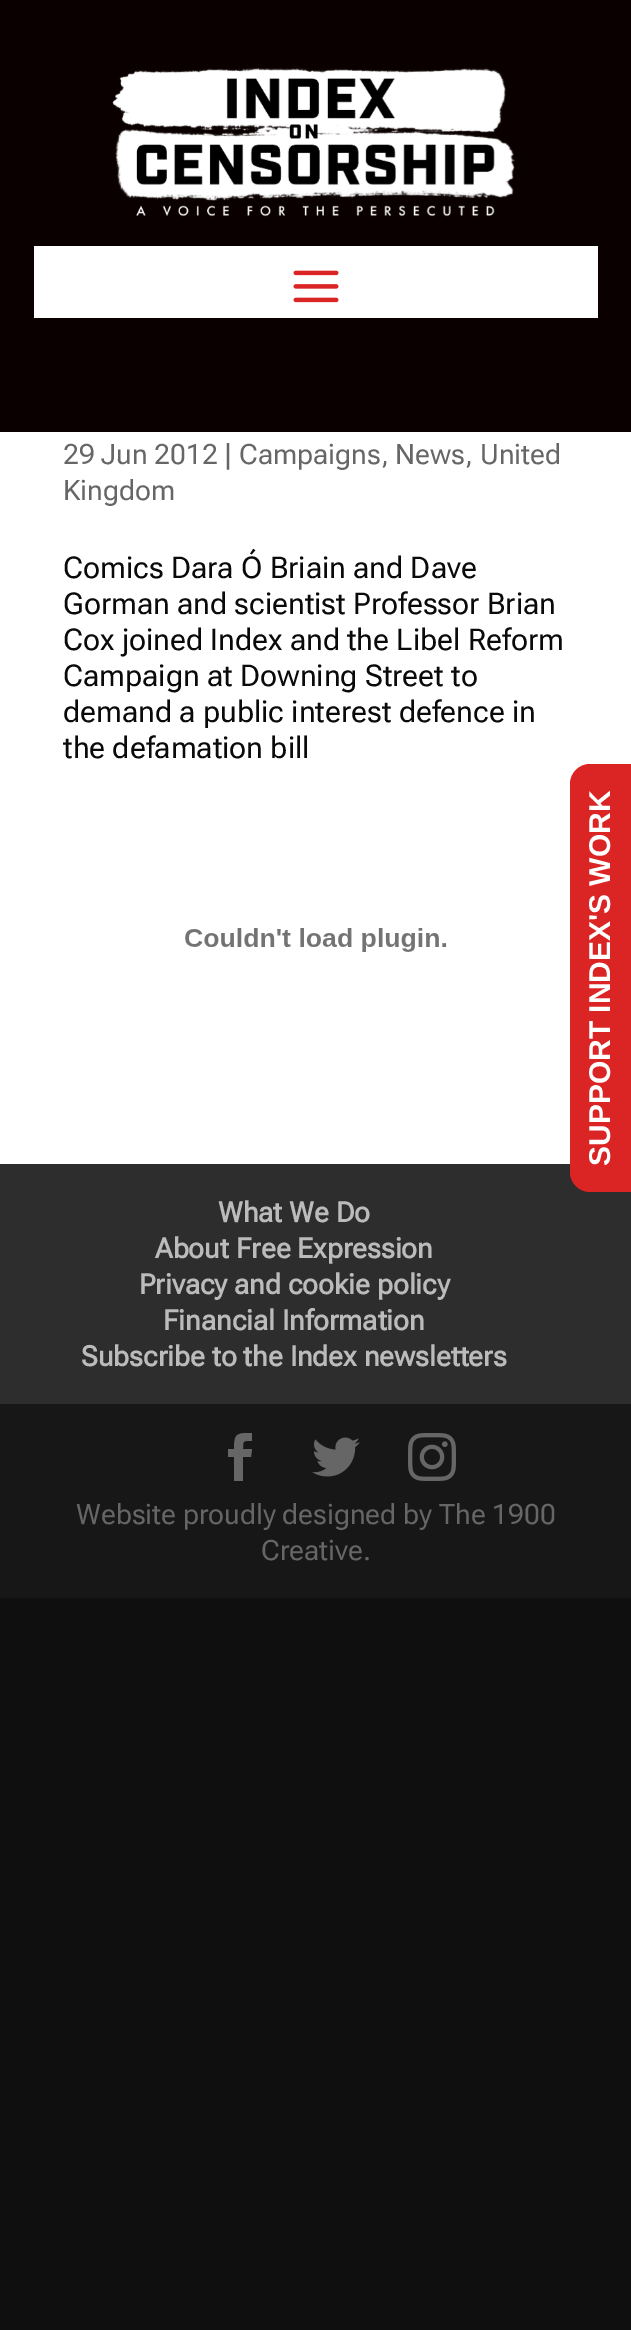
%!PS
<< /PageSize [631 2330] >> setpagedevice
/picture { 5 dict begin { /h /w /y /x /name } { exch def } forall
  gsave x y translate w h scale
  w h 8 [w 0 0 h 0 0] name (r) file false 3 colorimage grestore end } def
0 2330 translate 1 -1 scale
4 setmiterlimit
0.059 setgray
0 0 631 2330 rectfill
0.039 0 0 setrgbcolor
0 0 631 432 rectfill
(img1.rgb) 112 67 403 150 picture
1 setgray
34 246 564 72 rectfill
(img2.rgb) 293 270 46 33 picture
0 432 631 732 rectfill
/RobotoFlex-Regular [28 0 0 -28 0 0] selectfont
0.4 setgray
63 464 moveto (29 Jun 2012 | Campaigns, News, United) show
63 500 moveto (Kingdom) show
/RobotoFlex-Regular [30 0 0 -30 0 0] selectfont
0.039 setgray
63 578 moveto (Comics Dara Ó Briain and Dave) show
63 614 moveto (Gorman and scientist Professor Brian) show
63 650 moveto (Cox joined Index and the Libel Reform) show
63 686 moveto (Campaign at Downing Street to) show
63 722 moveto (demand a public interest defence in) show
63 758 moveto (the defamation bill) show
(img3.rgb) 185 928 262 24 picture
0.176 setgray
0 1164 631 240 rectfill
/RobotoFlex-Bold [28 0 0 -28 0 0] selectfont
0.733 setgray
218 1222 moveto (What We Do) show
155 1258 moveto (About Free Expression) show
139 1294 moveto (Privacy and cookie policy) show
163 1330 moveto (Financial Information) show
81 1366 moveto (Subscribe to the Index newsletters) show
0.09 setgray
0 1404 631 194 rectfill
0.4 setgray
newpath 234 1481 moveto 243 1481 lineto 243 1457 lineto 251 1457 lineto 252 1449 lineto 243 1449 lineto 243 1440 243 1441 252 1441 curveto 252 1433 lineto 237 1433 234 1433 234 1449 curveto 228 1449 lineto 228 1457 lineto 234 1457 lineto closepath fill
(img4.rgb) 312 1437 48 40 picture
(img5.rgb) 408 1433 48 48 picture
/RobotoFlex-Regular [28 0 0 -28 0 0] selectfont
76 1524 moveto (Website proudly designed by The 1900) show
261 1560 moveto (Creative.) show
0.859 0.141 0.141 setrgbcolor
newpath 570 1172 moveto 570 784 lineto 570 773 579 764 590 764 curveto 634 764 lineto 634 1192 lineto 590 1192 lineto 579 1192 570 1183 570 1172 curveto closepath fill
/LiberationSans-Bold [30 0 0 -30 0 0] selectfont
1 setgray
gsave 610 1166 translate -90 rotate 0 0 moveto (SUPPORT INDEX'S WORK) show grestore
showpage
